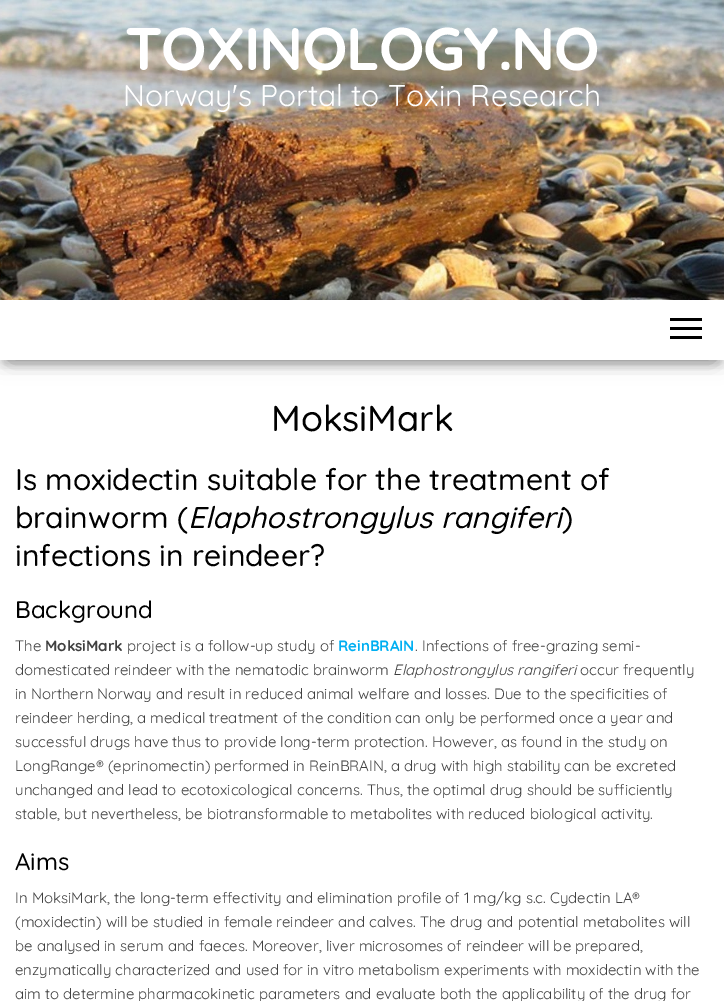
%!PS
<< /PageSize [724 1001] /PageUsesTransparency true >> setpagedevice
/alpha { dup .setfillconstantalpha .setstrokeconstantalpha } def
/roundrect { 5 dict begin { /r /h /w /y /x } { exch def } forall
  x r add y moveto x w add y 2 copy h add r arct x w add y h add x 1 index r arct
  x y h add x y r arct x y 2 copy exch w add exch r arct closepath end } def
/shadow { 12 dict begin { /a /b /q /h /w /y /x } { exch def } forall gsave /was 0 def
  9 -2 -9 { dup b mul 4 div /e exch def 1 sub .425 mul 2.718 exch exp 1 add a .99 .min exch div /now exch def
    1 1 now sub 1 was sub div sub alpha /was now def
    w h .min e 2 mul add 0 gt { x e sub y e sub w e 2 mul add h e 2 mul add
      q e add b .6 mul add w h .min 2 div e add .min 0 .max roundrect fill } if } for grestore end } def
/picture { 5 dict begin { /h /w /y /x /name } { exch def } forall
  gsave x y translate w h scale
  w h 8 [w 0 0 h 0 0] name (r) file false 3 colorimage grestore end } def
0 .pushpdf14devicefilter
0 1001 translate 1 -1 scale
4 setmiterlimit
1 setgray
0 0 724 1001 rectfill
(img1.rgb) 0 0 724 300 picture
/Quicksand-Bold [60 0 0 -60 0 0] selectfont
125 70 moveto -1.25 0 (TOXINOLOGY.NO) ashow
/Quicksand-Regular [30 0 0 -30 0 0] selectfont
123 106 moveto (Norway's Portal to Toxin Research) show
gsave
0 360 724 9 rectclip
0 setgray
5 313 714 50 0 5 0.2 shadow
grestore
gsave
newpath 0 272 moveto 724 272 lineto 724 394 lineto 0 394 lineto closepath 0 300 moveto 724 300 lineto 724 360 lineto 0 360 lineto closepath eoclip newpath
0 setgray
0 303 724 60 0 10 0.12 shadow
grestore
gsave
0 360 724 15 rectclip
0 setgray
12 322 700 36 0 10 0.42 shadow
grestore
0 setgray
670 318 32 3 rectfill
670 327 32 3 rectfill
670 336 32 3 rectfill
/Quicksand-Medium [36 0 0 -36 0 0] selectfont
271 431 moveto (MoksiMark) show
/Quicksand-Medium [30 0 0 -30 0 0] selectfont
15 490 moveto (Is moxidectin suitable for the treatment of) show
15 528 moveto (brainworm \() show
/Quicksand-MediumItalic [30 0 0 -30 0 0] selectfont
188 528 moveto (Elaphostrongylus rangiferi) show
/Quicksand-Medium [30 0 0 -30 0 0] selectfont
562 528 moveto (\)) show
15 566 moveto (infections in reindeer?) show
/Quicksand-Medium [24 0 0 -24 0 0] selectfont
15 618 moveto (Background) show
/Quicksand-Regular [15 0 0 -15 0 0] selectfont
0.251 setgray
15 651 moveto (The) show
/Quicksand-Bold [15 0 0 -15 0 0] selectfont
45 651 moveto (MoksiMark) show
/Quicksand-Regular [15 0 0 -15 0 0] selectfont
127 651 moveto (project is a follow-up study of) show
/Quicksand-Bold [15 0 0 -15 0 0] selectfont
0 0.686 0.949 setrgbcolor
338 651 moveto (ReinBRAIN) show
/Quicksand-Regular [15 0 0 -15 0 0] selectfont
0.251 setgray
415 651 moveto (. Infections of free-grazing semi-) show
15 675 moveto (domesticated reindeer with the nematodic brainworm) show
/Quicksand-Italic [15 0 0 -15 0 0] selectfont
393 675 moveto (Elaphostrongylus rangiferi) show
/Quicksand-Regular [15 0 0 -15 0 0] selectfont
580 675 moveto (occur frequently) show
15 699 moveto (in Northern Norway and result in reduced animal welfare and losses. Due to the specificities of) show
15 723 moveto (reindeer herding, a medical treatment of the condition can only be performed once a year and) show
15 747 moveto (successful drugs have thus to provide long-term protection. However, as found in the study on) show
15 771 moveto (LongRange® \(eprinomectin\) performed in ReinBRAIN, a drug with high stability can be excreted) show
15 795 moveto (unchanged and lead to ecotoxicological concerns. Thus, the optimal drug should be sufficiently) show
15 819 moveto (stable, but nevertheless, be biotransformable to metabolites with reduced biological activity.) show
/Quicksand-Medium [24 0 0 -24 0 0] selectfont
0 setgray
15 870 moveto (Aims) show
/Quicksand-Regular [15 0 0 -15 0 0] selectfont
0.251 setgray
15 903 moveto (In MoksiMark, the long-term effectivity and elimination profile of 1 mg/kg s.c. Cydectin LA®) show
15 927 moveto (\(moxidectin\) will be studied in female reindeer and calves. The drug and potential metabolites will) show
15 951 moveto (be analysed in serum and faeces. Moreover, liver microsomes of reindeer will be prepared,) show
15 975 moveto (enzymatically characterized and used for in vitro metabolism experiments with moxidectin with the) show
15 999 moveto (aim to determine pharmacokinetic parameters and evaluate both the applicability of the drug for) show
.poppdf14devicefilter showpage
